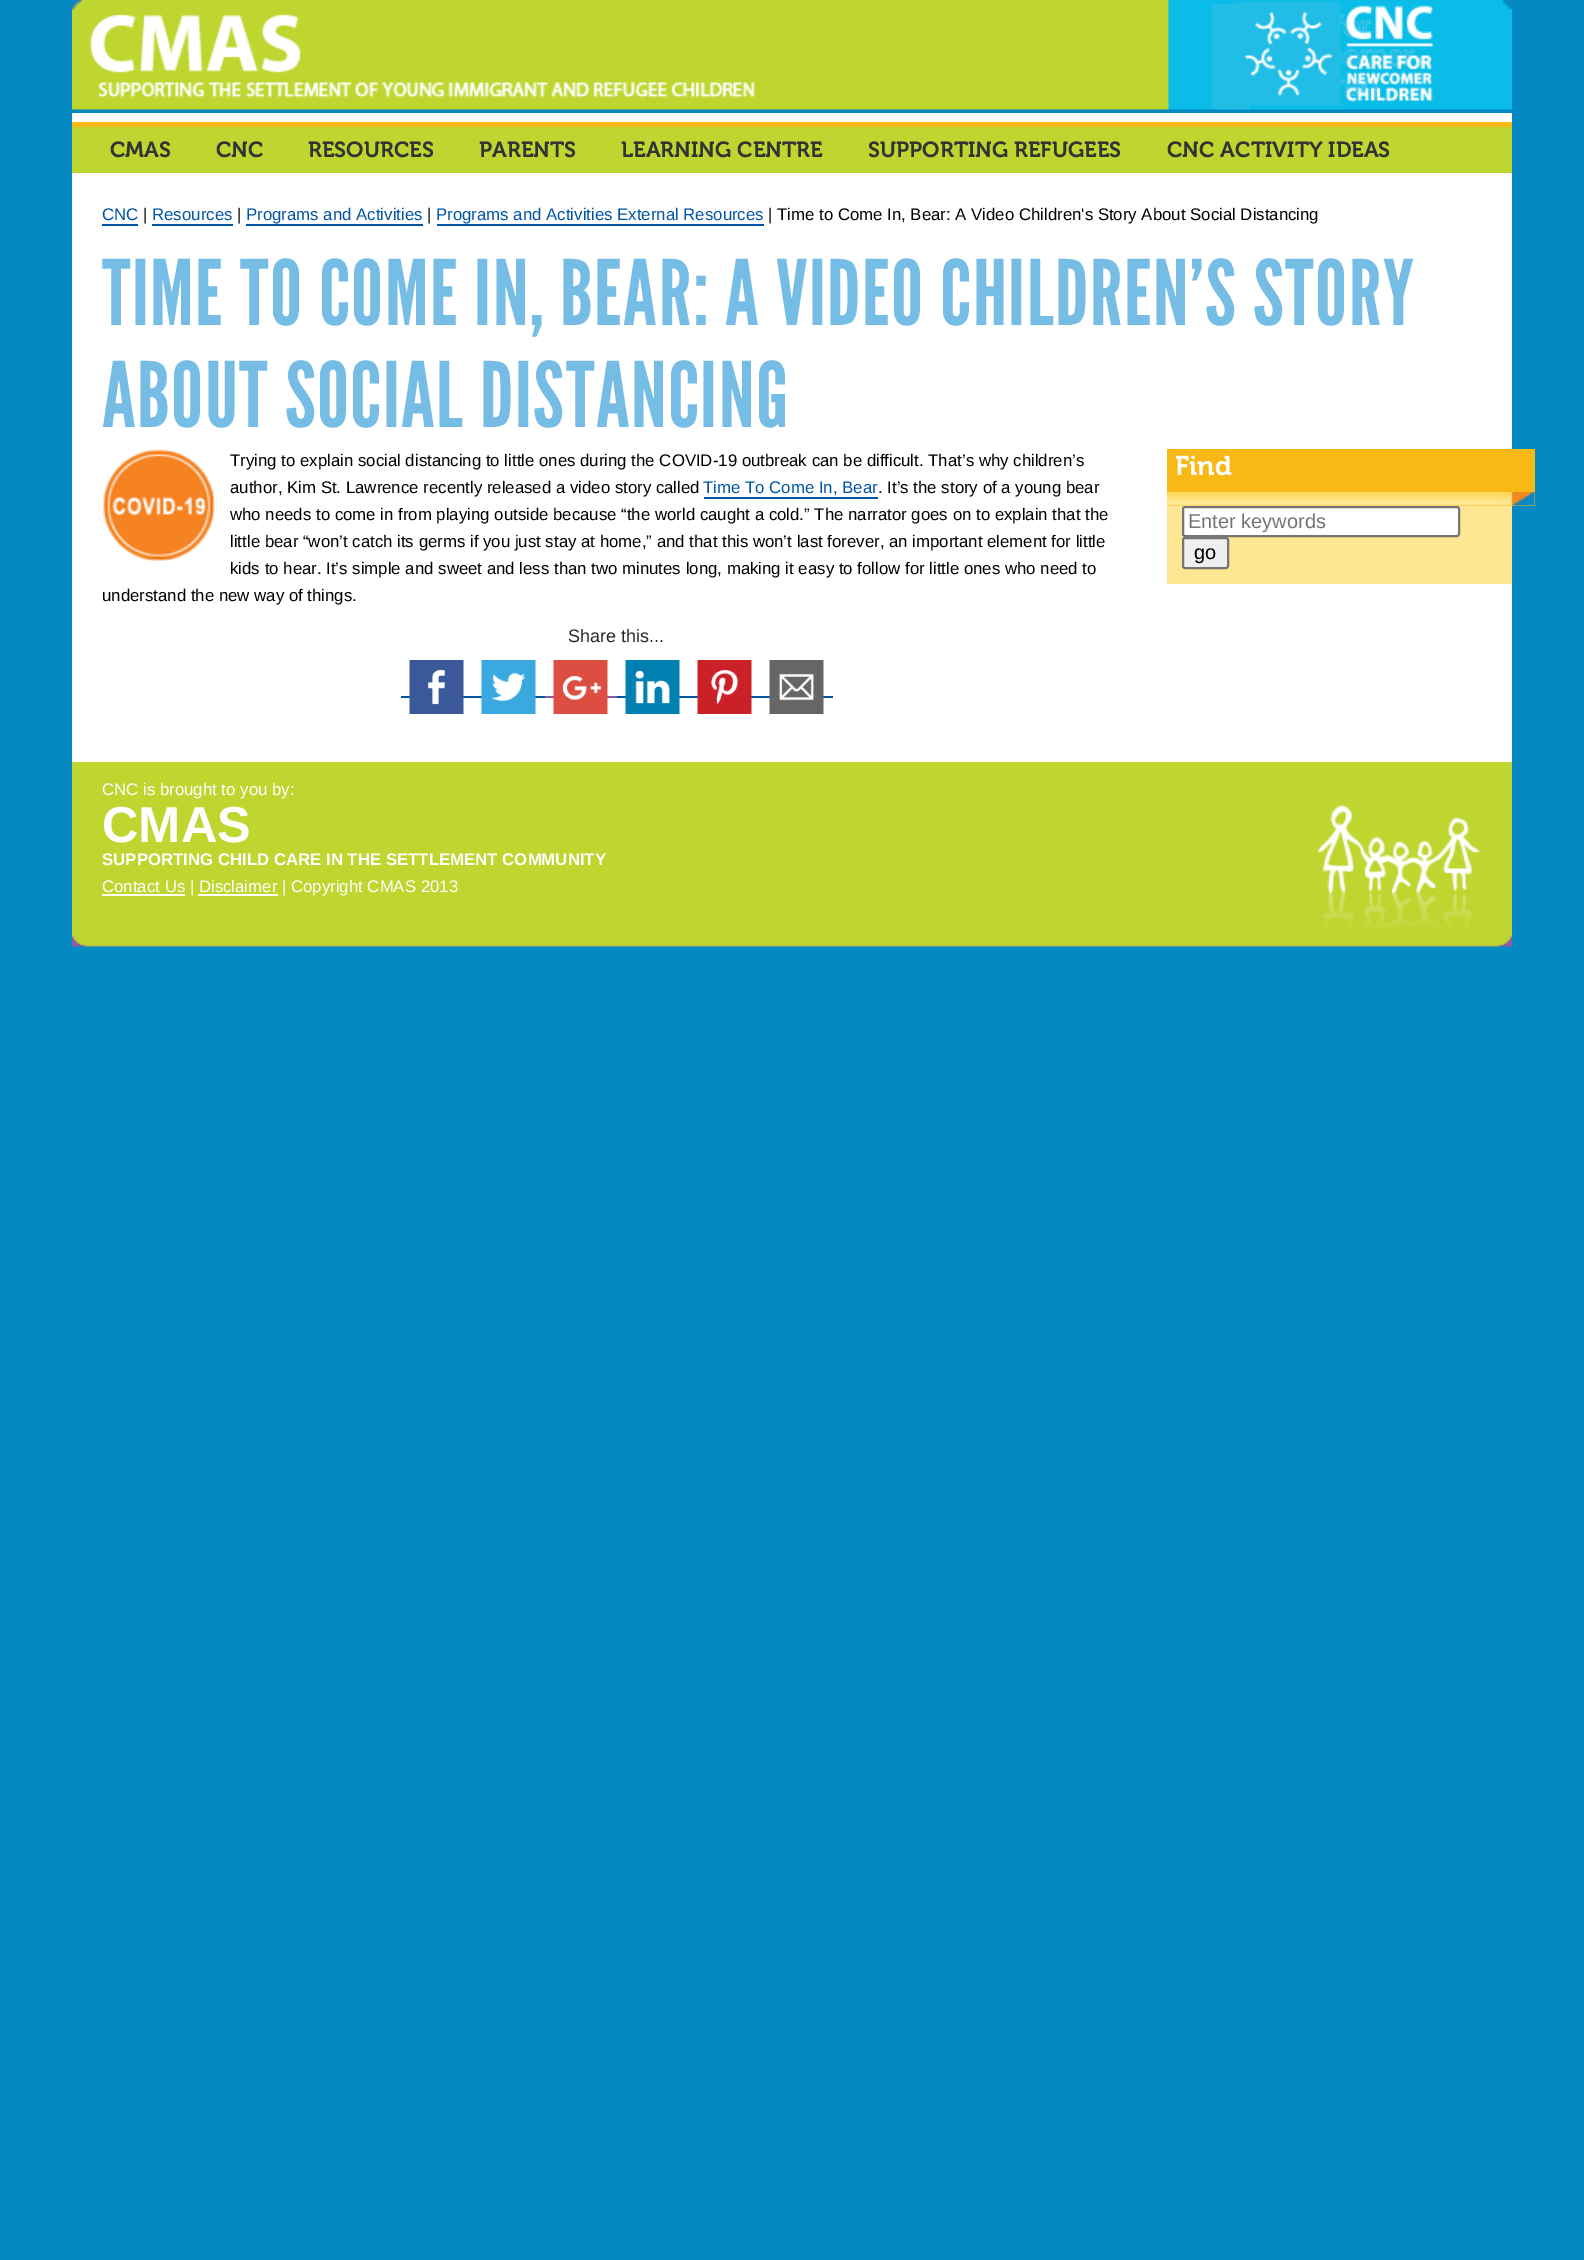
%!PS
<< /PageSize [1584 2260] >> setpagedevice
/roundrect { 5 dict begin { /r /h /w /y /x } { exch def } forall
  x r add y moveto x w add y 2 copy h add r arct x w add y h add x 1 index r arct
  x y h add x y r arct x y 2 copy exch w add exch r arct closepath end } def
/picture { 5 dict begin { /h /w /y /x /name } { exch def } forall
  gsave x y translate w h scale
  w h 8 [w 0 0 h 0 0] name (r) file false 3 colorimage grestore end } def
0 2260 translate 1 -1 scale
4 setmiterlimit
0.02 0.537 0.765 setrgbcolor
0 0 1584 2260 rectfill
(img1.rgb) 72 0 1440 110 picture
0.745 0.839 0.184 setrgbcolor
72 127 1440 46 rectfill
1 setgray
72 113 1440 9 rectfill
0.973 0.725 0.086 setrgbcolor
72 122 1440 5 rectfill
/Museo-SemiBold [21.8 0 0 -21.8 0 0] selectfont
0.2 setgray
110 157 moveto (CMAS) show
216 157 moveto (CNC) show
308 157 moveto (RESOURCES) show
479 157 moveto (PARENTS) show
621 157 moveto (LEARNING CENTRE) show
868 157 moveto (SUPPORTING REFUGEES) show
1167 157 moveto (CNC ACTIVITY IDEAS) show
1 setgray
72 173 1440 589 rectfill
/LiberationSans-Regular [16.8 0 0 -16.8 0 0] selectfont
0 0.329 0.647 setrgbcolor
102 220 moveto (CNC) show
102 224 36 2 rectfill
0 setgray
143 220 moveto (|) show
0 0.329 0.647 setrgbcolor
152 220 moveto (Resources) show
152 224 81 2 rectfill
0 setgray
237 220 moveto (|) show
0 0.329 0.647 setrgbcolor
246 220 moveto (Programs and Activities) show
246 224 177 2 rectfill
0 setgray
427 220 moveto (|) show
0 0.329 0.647 setrgbcolor
436 220 moveto (Programs and Activities External Resources) show
437 224 327 2 rectfill
0 setgray
768 220 moveto (| Time to Come In, Bear: A Video Children's Story About Social Distancing) show
/LeagueGothic-Regular [90 0 0 -90 0 0] selectfont
0.463 0.741 0.902 setrgbcolor
102 325 moveto 1.5 0 (TIME TO COME IN, BEAR: A VIDEO CHILDREN’S STORY) ashow
102 427 moveto 1.5 0 (ABOUT SOCIAL DISTANCING) ashow
(img2.rgb) 103 449 112 112 picture
/LiberationSans-Regular [16.8 0 0 -16.8 0 0] selectfont
0 setgray
230 466 moveto (Trying to explain social distancing to little ones during the COVID-19 outbreak can be difficult. That’s why children’s) show
230 493 moveto (author, Kim St. Lawrence recently released a video story called) show
0 0.329 0.647 setrgbcolor
703 493 moveto (Time To Come In, Bear) show
704 497 174 2 rectfill
0 setgray
878 493 moveto (. It’s the story of a young bear) show
230 520 moveto (who needs to come in from playing outside because “the world caught a cold.” The narrator goes on to explain that the) show
230 547 moveto (little bear “won’t catch its germs if you just stay at home,” and that this won’t last forever, an important element for little) show
230 574 moveto (kids to hear. It’s simple and sweet and less than two minutes long, making it easy to follow for little ones who need to) show
102 601 moveto (understand the new way of things.) show
/LiberationSans-Regular [18 0 0 -18 0 0] selectfont
0.153 setgray
568 642 moveto (Share this...) show
0 0.329 0.647 setrgbcolor
401 696 144 2 rectfill
(img3.rgb) 409 660 55 54 picture
(img4.rgb) 481 660 55 54 picture
0.549 0.357 0.643 setrgbcolor
545 696 72 2 rectfill
(img5.rgb) 553 660 55 54 picture
0 0.329 0.647 setrgbcolor
617 696 216 2 rectfill
(img6.rgb) 625 660 55 54 picture
(img7.rgb) 697 660 55 54 picture
(img8.rgb) 769 660 55 54 picture
0.973 0.725 0.086 setrgbcolor
1167 449 368 57 rectfill
(img9.rgb) 1167 492 368 14 picture
/Museo-SemiBold [27 0 0 -27 0 0] selectfont
1 setgray
1175 475 moveto (Find) show
1 0.902 0.576 setrgbcolor
1167 506 345 78 rectfill
1 setgray
1183 507 276 29 2 roundrect gsave fill grestore
0.463 setgray
2 setlinewidth
stroke
/LiberationSans-Regular [20 0 0 -20 0 0] selectfont
0.459 setgray
1188 528 moveto (Enter keywords) show
0.937 setgray
1183 538 45 30 2 roundrect gsave fill grestore
0.463 setgray
stroke
0 setgray
1194 559 moveto (go) show
(img10.rgb) 72 762 1440 185 picture
/LiberationSans-Regular [16.8 0 0 -16.8 0 0] selectfont
1 setgray
102 795 moveto (CNC is brought to you by:) show
/LiberationSans-Bold [50.5 0 0 -50.5 0 0] selectfont
102 842 moveto (CMAS) show
/LiberationSans-Bold [16.8 0 0 -16.8 0 0] selectfont
102 865 moveto (SUPPORTING CHILD CARE IN THE SETTLEMENT COMMUNITY) show
102 894 83 2 rectfill
/LiberationSans-Regular [16.8 0 0 -16.8 0 0] selectfont
102 892 moveto (Contact Us | Disclaimer | Copyright CMAS 2013) show
198 894 80 2 rectfill
showpage
